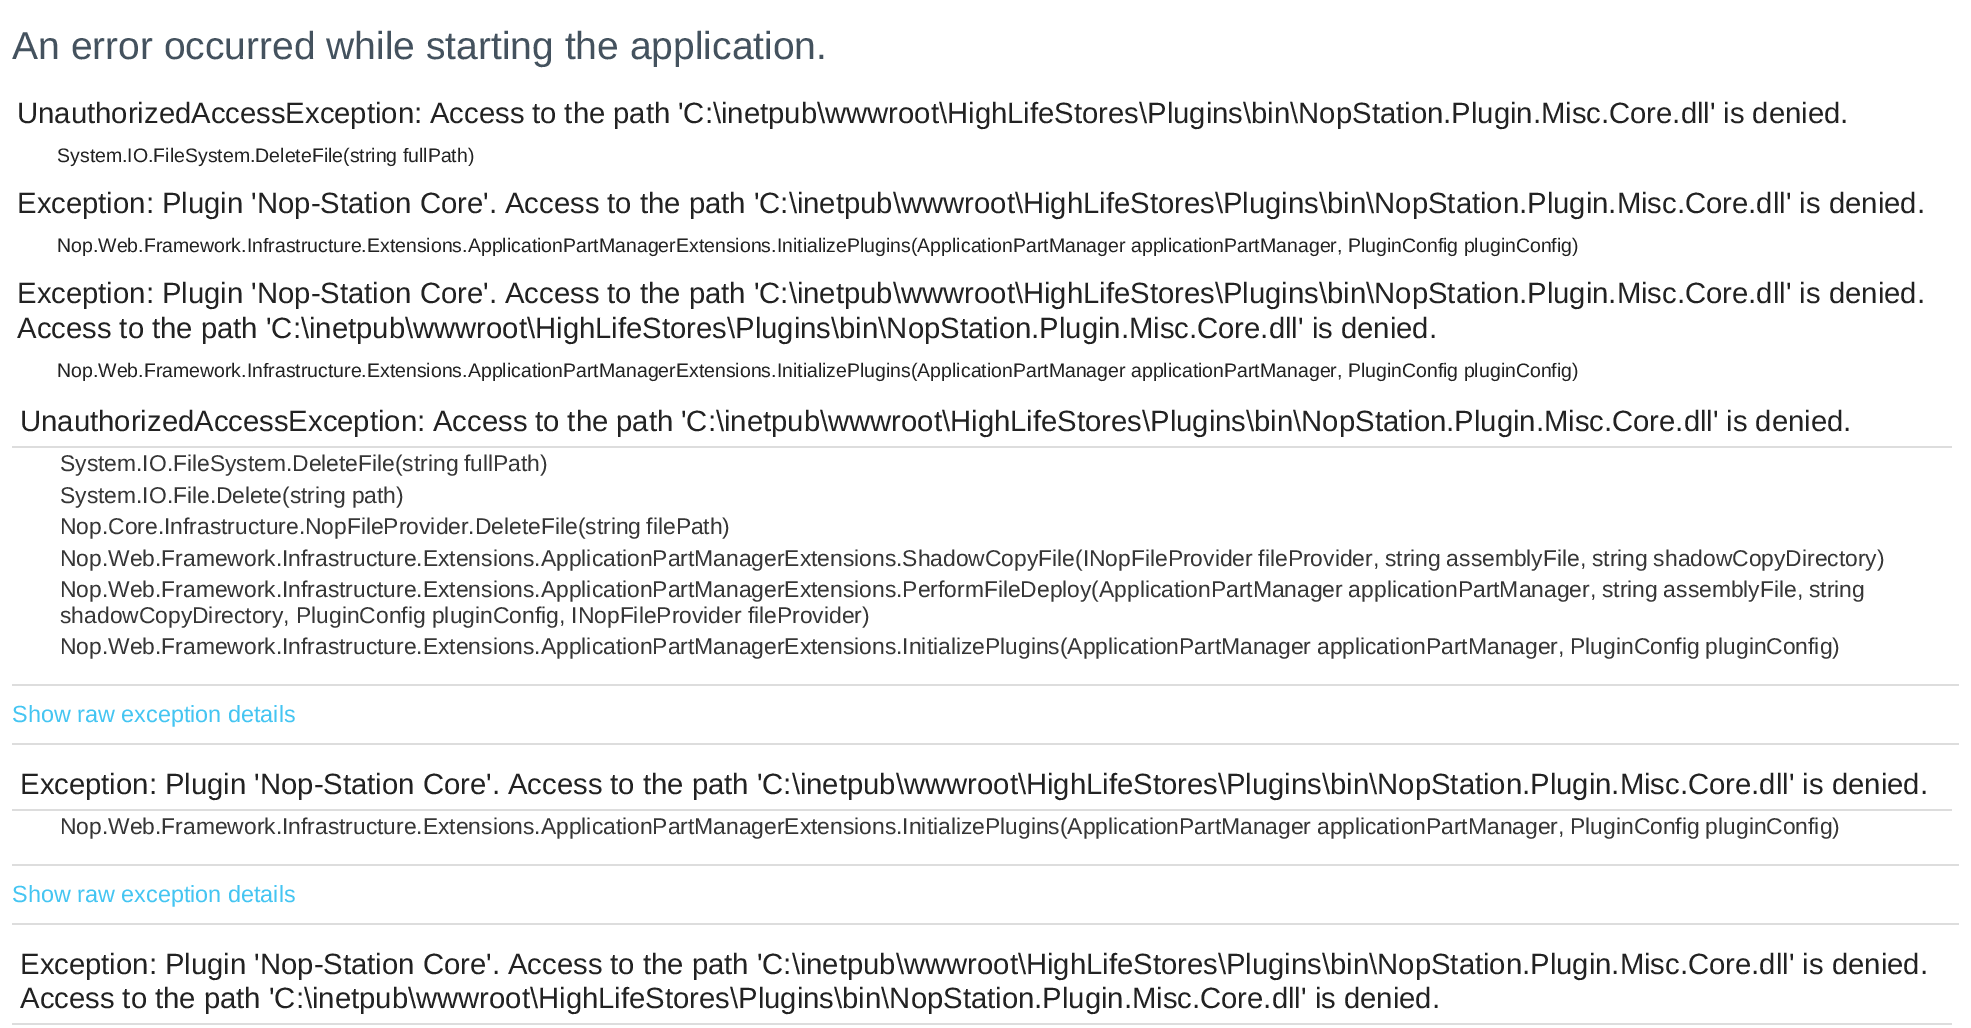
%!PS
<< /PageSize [1971 1028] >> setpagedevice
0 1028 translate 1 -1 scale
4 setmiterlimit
1 setgray
0 0 1971 1028 rectfill
/LiberationSans-Regular [39 0 0 -39 0 0] selectfont
0.267 0.322 0.369 setrgbcolor
12 59 moveto (An error occurred while starting the application.) show
/LiberationSans-Regular [29.27 0 0 -29.27 0 0] selectfont
0.133 setgray
17 123 moveto -0.25 0 32 (UnauthorizedAccessException: Access to the path 'C:\\inetpub\\wwwroot\\HighLifeStores\\Plugins\\bin\\NopStation.Plugin.Misc.Core.dll' is denied.) widthshow
/LiberationSans-Regular [19.5 0 0 -19.5 0 0] selectfont
57 162 moveto (System.IO.FileSystem.DeleteFile\(string fullPath\)) show
/LiberationSans-Regular [29.27 0 0 -29.27 0 0] selectfont
17 213 moveto (Exception: Plugin 'Nop-Station Core'. Access to the path 'C:\\inetpub\\wwwroot\\HighLifeStores\\Plugins\\bin\\NopStation.Plugin.Misc.Core.dll' is denied.) show
/LiberationSans-Regular [19.5 0 0 -19.5 0 0] selectfont
57 252 moveto (Nop.Web.Framework.Infrastructure.Extensions.ApplicationPartManagerExtensions.InitializePlugins\(ApplicationPartManager applicationPartManager, PluginConfig pluginConfig\)) show
/LiberationSans-Regular [29.27 0 0 -29.27 0 0] selectfont
17 303 moveto (Exception: Plugin 'Nop-Station Core'. Access to the path 'C:\\inetpub\\wwwroot\\HighLifeStores\\Plugins\\bin\\NopStation.Plugin.Misc.Core.dll' is denied.) show
17 338 moveto (Access to the path 'C:\\inetpub\\wwwroot\\HighLifeStores\\Plugins\\bin\\NopStation.Plugin.Misc.Core.dll' is denied.) show
/LiberationSans-Regular [19.5 0 0 -19.5 0 0] selectfont
57 377 moveto (Nop.Web.Framework.Infrastructure.Extensions.ApplicationPartManagerExtensions.InitializePlugins\(ApplicationPartManager applicationPartManager, PluginConfig pluginConfig\)) show
0.867 setgray
12 446 1940 2 rectfill
/LiberationSans-Regular [29.27 0 0 -29.27 0 0] selectfont
0.133 setgray
20 431 moveto -0.25 0 32 (UnauthorizedAccessException: Access to the path 'C:\\inetpub\\wwwroot\\HighLifeStores\\Plugins\\bin\\NopStation.Plugin.Misc.Core.dll' is denied.) widthshow
/LiberationSans-Regular [22.83 0 0 -22.83 0 0] selectfont
0.212 setgray
60 471 moveto -1 0 32 (System.IO.FileSystem.DeleteFile\(string fullPath\)) widthshow
60 503 moveto (System.IO.File.Delete\(string path\)) show
60 534 moveto -1 0 32 (Nop.Core.Infrastructure.NopFileProvider.DeleteFile\(string filePath\)) widthshow
60 566 moveto -0.5 0 32 (Nop.Web.Framework.Infrastructure.Extensions.ApplicationPartManagerExtensions.ShadowCopyFile\(INopFileProvider fileProvider, string assemblyFile, string shadowCopyDirectory\)) widthshow
60 597 moveto -0.5 0 32 (Nop.Web.Framework.Infrastructure.Extensions.ApplicationPartManagerExtensions.PerformFileDeploy\(ApplicationPartManager applicationPartManager, string assemblyFile, string) widthshow
60 623 moveto (shadowCopyDirectory, PluginConfig pluginConfig, INopFileProvider fileProvider\)) show
60 654 moveto -0.5 0 32 (Nop.Web.Framework.Infrastructure.Extensions.ApplicationPartManagerExtensions.InitializePlugins\(ApplicationPartManager applicationPartManager, PluginConfig pluginConfig\)) widthshow
0.867 setgray
12 684 1947 2 rectfill
12 743 1947 2 rectfill
/LiberationSans-Regular [23.4 0 0 -23.4 0 0] selectfont
0.267 0.773 0.949 setrgbcolor
12 722 moveto (Show raw exception details) show
0.867 setgray
12 809 1940 2 rectfill
/LiberationSans-Regular [29.27 0 0 -29.27 0 0] selectfont
0.133 setgray
20 794 moveto (Exception: Plugin 'Nop-Station Core'. Access to the path 'C:\\inetpub\\wwwroot\\HighLifeStores\\Plugins\\bin\\NopStation.Plugin.Misc.Core.dll' is denied.) show
/LiberationSans-Regular [22.83 0 0 -22.83 0 0] selectfont
0.212 setgray
60 834 moveto -0.5 0 32 (Nop.Web.Framework.Infrastructure.Extensions.ApplicationPartManagerExtensions.InitializePlugins\(ApplicationPartManager applicationPartManager, PluginConfig pluginConfig\)) widthshow
0.867 setgray
12 864 1947 2 rectfill
12 923 1947 2 rectfill
/LiberationSans-Regular [23.4 0 0 -23.4 0 0] selectfont
0.267 0.773 0.949 setrgbcolor
12 902 moveto (Show raw exception details) show
0.867 setgray
12 1023 1940 2 rectfill
/LiberationSans-Regular [29.27 0 0 -29.27 0 0] selectfont
0.133 setgray
20 974 moveto (Exception: Plugin 'Nop-Station Core'. Access to the path 'C:\\inetpub\\wwwroot\\HighLifeStores\\Plugins\\bin\\NopStation.Plugin.Misc.Core.dll' is denied.) show
20 1008 moveto (Access to the path 'C:\\inetpub\\wwwroot\\HighLifeStores\\Plugins\\bin\\NopStation.Plugin.Misc.Core.dll' is denied.) show
showpage
